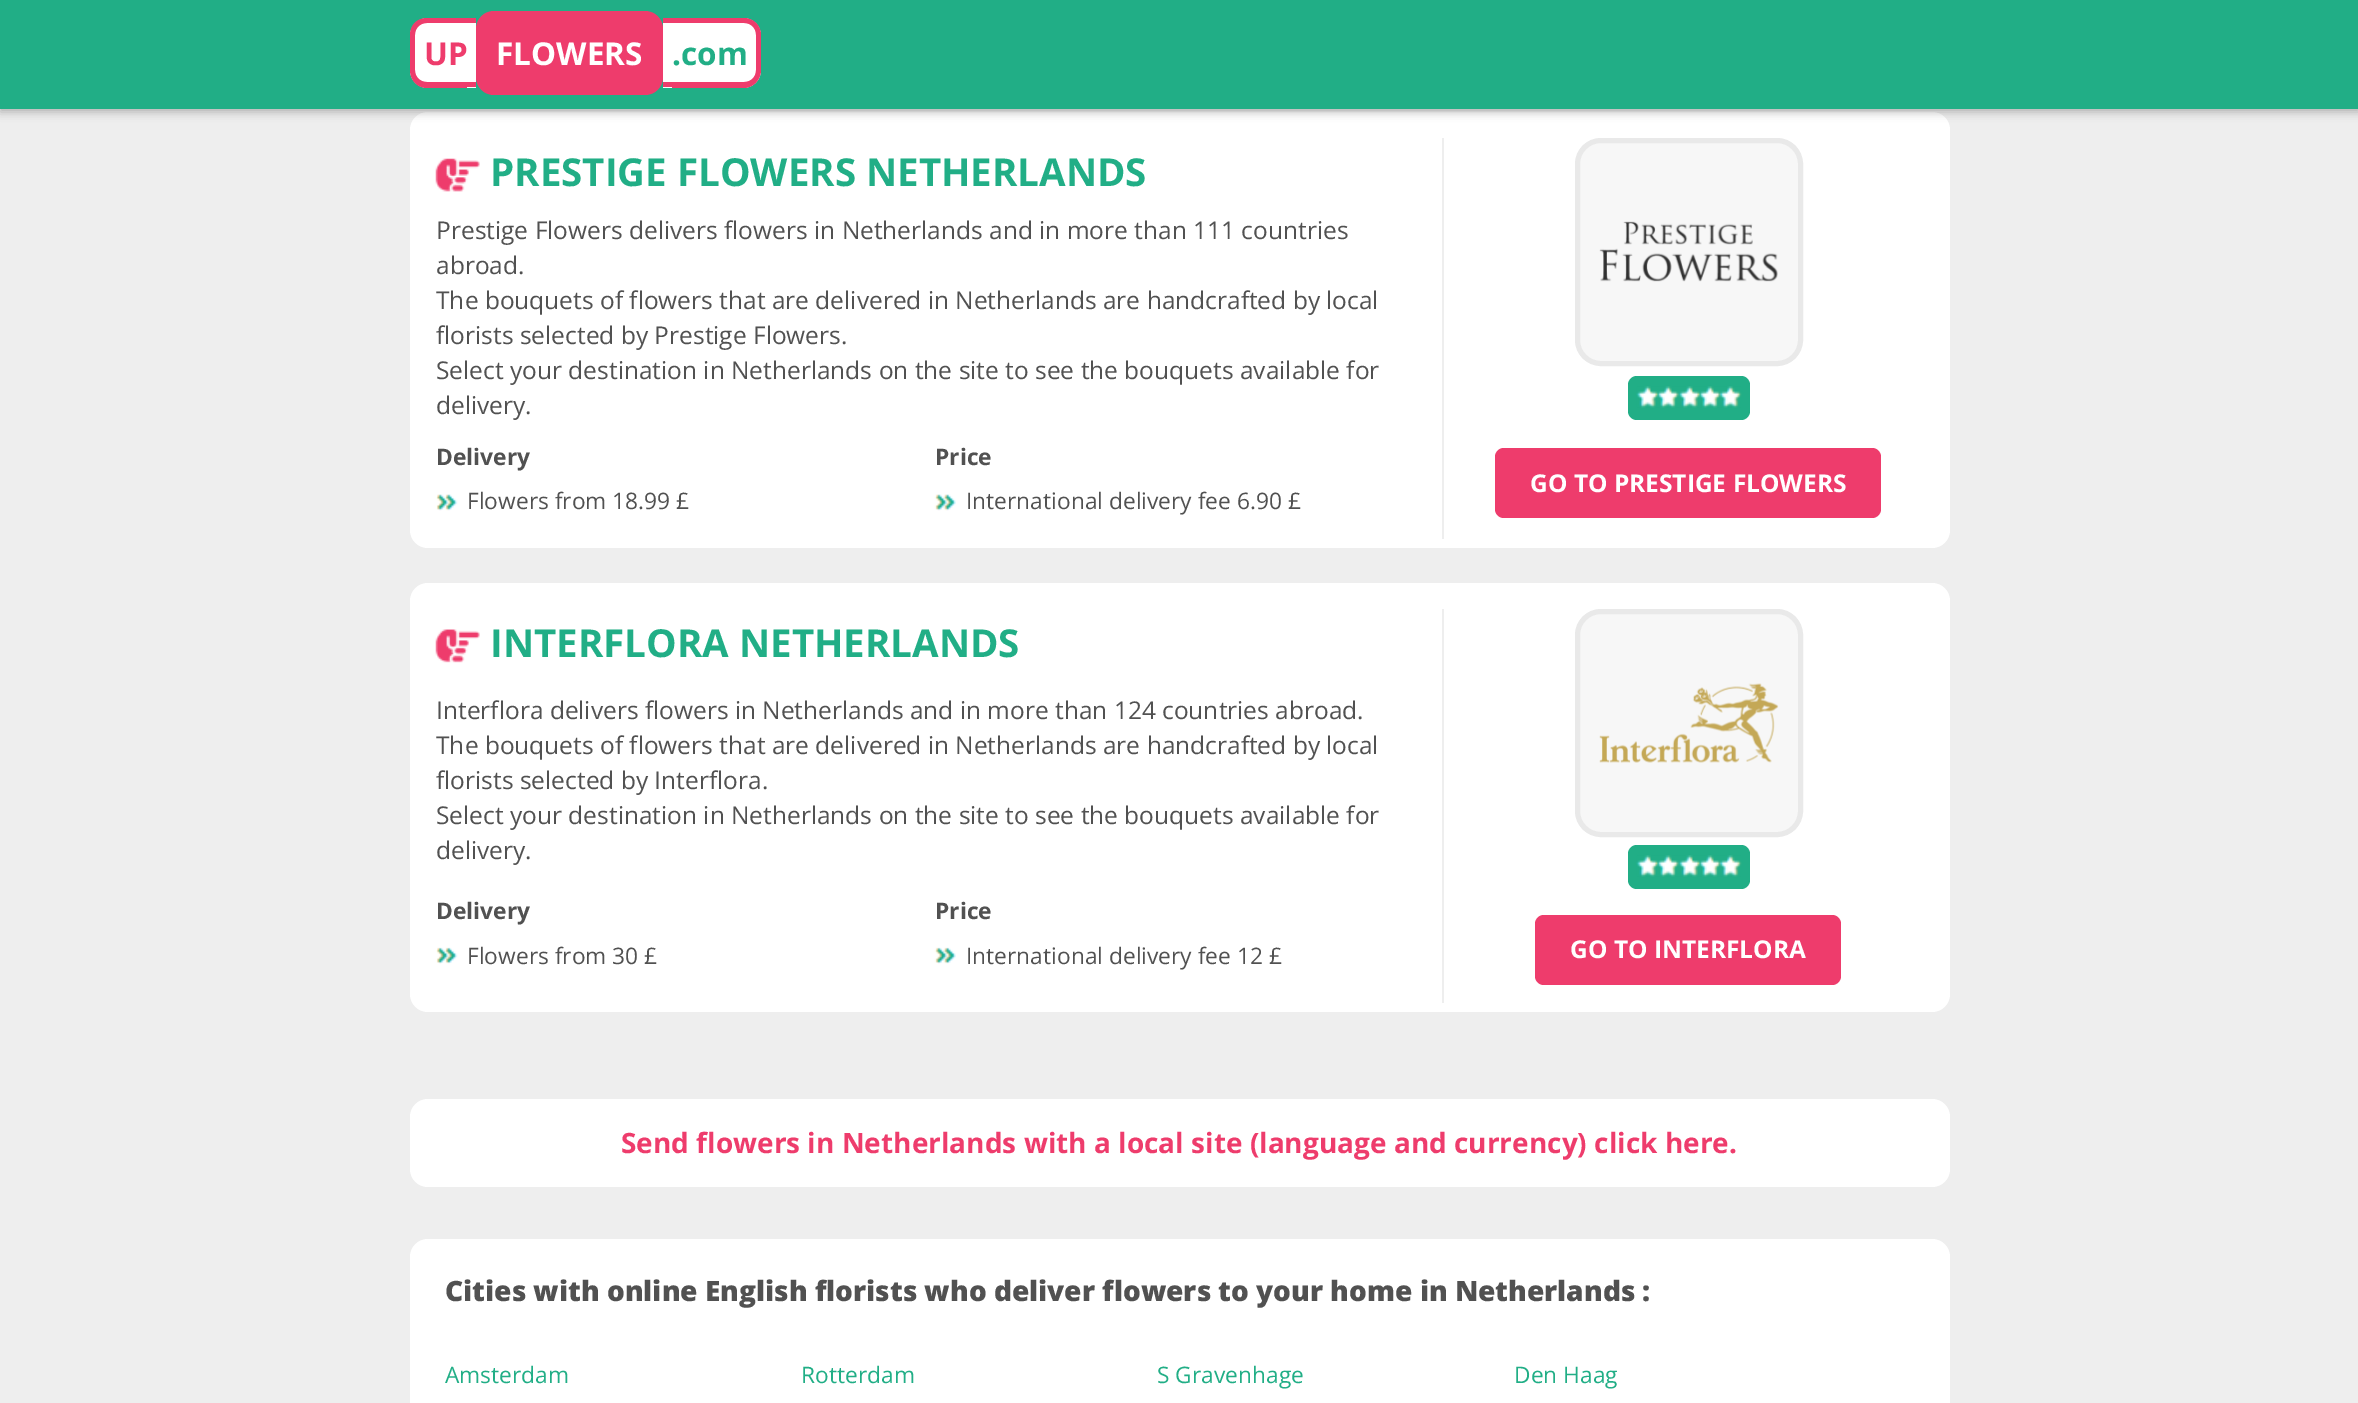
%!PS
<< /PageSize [2358 1403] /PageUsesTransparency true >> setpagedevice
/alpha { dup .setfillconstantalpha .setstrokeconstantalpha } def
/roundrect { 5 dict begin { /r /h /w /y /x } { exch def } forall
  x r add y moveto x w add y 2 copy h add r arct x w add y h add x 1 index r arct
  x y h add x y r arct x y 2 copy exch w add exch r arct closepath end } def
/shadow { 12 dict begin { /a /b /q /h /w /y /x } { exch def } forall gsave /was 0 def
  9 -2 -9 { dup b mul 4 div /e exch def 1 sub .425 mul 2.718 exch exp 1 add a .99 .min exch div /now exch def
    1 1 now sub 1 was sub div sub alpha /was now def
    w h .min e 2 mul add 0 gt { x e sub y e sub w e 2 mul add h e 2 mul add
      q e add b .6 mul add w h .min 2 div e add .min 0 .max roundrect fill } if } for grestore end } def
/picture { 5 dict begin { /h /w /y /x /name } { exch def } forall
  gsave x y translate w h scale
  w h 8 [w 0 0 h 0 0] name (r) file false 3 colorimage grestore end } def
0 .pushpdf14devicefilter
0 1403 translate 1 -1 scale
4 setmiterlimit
0.933 setgray
0 0 2358 1403 rectfill
1 setgray
410 112 1540 436 18 roundrect fill
0 setgray
0 4 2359 108 0 4.5 0.26 shadow
0.129 0.682 0.525 setrgbcolor
0 0 2358 109 rectfill
1 setgray
newpath 428 18 moveto 467 18 lineto 467 88 lineto 428 88 lineto 418 88 410 80 410 70 curveto 410 36 lineto 410 26 418 18 428 18 curveto closepath fill
0.933 0.235 0.424 setrgbcolor
newpath 427 18 moveto 467 18 lineto 467 88 lineto 427 88 lineto 417 88 410 80 410 70 curveto 410 35 lineto 410 25 417 18 427 18 curveto closepath 427 23 moveto 467 23 lineto 467 82 lineto 427 82 lineto 420 82 415 77 415 70 curveto 415 35 lineto 415 28 420 23 427 23 curveto closepath eofill
/OpenSans-Bold [31.5 0 0 -31.5 0 0] selectfont
424 65 moveto (UP) show
1 setgray
467 23 9 65 rectfill
0.933 0.235 0.424 setrgbcolor
467 18 9 5 rectfill
467 82 9 5 rectfill
476 11 187 84 18 roundrect fill
1 setgray
496 65 moveto (FLOWERS) show
newpath 672 18 moveto 743 18 lineto 753 18 761 26 761 36 curveto 761 70 lineto 761 80 753 88 743 88 curveto 672 88 lineto closepath fill
0.933 0.235 0.424 setrgbcolor
newpath 672 18 moveto 744 18 lineto 753 18 761 25 761 35 curveto 761 70 lineto 761 80 753 88 744 88 curveto 672 88 lineto closepath 672 23 moveto 744 23 lineto 751 23 756 28 756 35 curveto 756 70 lineto 756 77 751 82 744 82 curveto 672 82 lineto closepath eofill
0.129 0.682 0.525 setrgbcolor
672 65 moveto (.com) show
1 setgray
663 23 9 65 rectfill
0.933 0.235 0.424 setrgbcolor
663 18 9 5 rectfill
663 82 9 5 rectfill
(img1.rgb) 435 158 45 34 picture
/OpenSans-Bold [38.5 0 0 -38.5 0 0] selectfont
0.129 0.682 0.525 setrgbcolor
490 186 moveto (PRESTIGE FLOWERS NETHERLANDS) show
/OpenSans-Regular [24.5 0 0 -24.5 0 0] selectfont
0.318 setgray
436 239 moveto (Prestige Flowers delivers flowers in Netherlands and in more than 111 countries) show
436 274 moveto (abroad.) show
436 309 moveto (The bouquets of flowers that are delivered in Netherlands are handcrafted by local) show
436 344 moveto (florists selected by Prestige Flowers.) show
436 379 moveto (Select your destination in Netherlands on the site to see the bouquets available for) show
436 414 moveto (delivery.) show
/OpenSans-Bold [22.75 0 0 -22.75 0 0] selectfont
436 465 moveto (Delivery) show
(img2.rgb) 436 494 22 17 picture
/OpenSans-Regular [22.75 0 0 -22.75 0 0] selectfont
467 509 moveto (Flowers from 18.99 £) show
/OpenSans-Bold [22.75 0 0 -22.75 0 0] selectfont
935 465 moveto (Price) show
(img3.rgb) 934 494 22 17 picture
/OpenSans-Regular [22.75 0 0 -22.75 0 0] selectfont
966 509 moveto (International delivery fee 6.90 £) show
0.933 setgray
1442 138 2 401 rectfill
0.969 setgray
1577.5 140.5 223 223 23.5 roundrect gsave fill grestore
0.914 setgray
5 setlinewidth
stroke
(img4.rgb) 1599 221 179 61 picture
0.129 0.682 0.525 setrgbcolor
1628 376 122 44 9 roundrect fill
(img5.rgb) 1636 386 106 22 picture
0.933 0.235 0.424 setrgbcolor
1495 448 386 70 9 roundrect fill
/OpenSans-Bold [24.5 0 0 -24.5 0 0] selectfont
1 setgray
1530 492 moveto (GO TO PRESTIGE FLOWERS) show
410 583 1540 429 18 roundrect fill
(img6.rgb) 435 629 45 34 picture
/OpenSans-Bold [38.5 0 0 -38.5 0 0] selectfont
0.129 0.682 0.525 setrgbcolor
490 657 moveto (INTERFLORA NETHERLANDS) show
/OpenSans-Regular [24.5 0 0 -24.5 0 0] selectfont
0.318 setgray
436 719 moveto (Interflora delivers flowers in Netherlands and in more than 124 countries abroad.) show
436 754 moveto (The bouquets of flowers that are delivered in Netherlands are handcrafted by local) show
436 789 moveto (florists selected by Interflora.) show
436 824 moveto (Select your destination in Netherlands on the site to see the bouquets available for) show
436 859 moveto (delivery.) show
/OpenSans-Bold [22.75 0 0 -22.75 0 0] selectfont
436 919 moveto (Delivery) show
(img7.rgb) 436 947 22 17 picture
/OpenSans-Regular [22.75 0 0 -22.75 0 0] selectfont
467 964 moveto (Flowers from 30 £) show
/OpenSans-Bold [22.75 0 0 -22.75 0 0] selectfont
935 919 moveto (Price) show
(img8.rgb) 934 947 22 17 picture
/OpenSans-Regular [22.75 0 0 -22.75 0 0] selectfont
966 964 moveto (International delivery fee 12 £) show
0.933 setgray
1442 609 2 394 rectfill
0.969 setgray
1577.5 611.5 223 223 23.5 roundrect gsave fill grestore
0.914 setgray
stroke
(img9.rgb) 1599 683 180 80 picture
0.129 0.682 0.525 setrgbcolor
1628 845 122 44 9 roundrect fill
(img5.rgb) 1636 855 106 22 picture
0.933 0.235 0.424 setrgbcolor
1535 915 306 70 9 roundrect fill
/OpenSans-Bold [24.5 0 0 -24.5 0 0] selectfont
1 setgray
1570 958 moveto (GO TO INTERFLORA) show
410 1099 1540 88 18 roundrect fill
/OpenSans-Bold [28 0 0 -28 0 0] selectfont
0.933 0.235 0.424 setrgbcolor
621 1153 moveto (Send flowers in Netherlands with a local site \(language and currency\) click here.) show
1 setgray
410 1239 1540 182 18 roundrect fill
/OpenSans-ExtraBold [28 0 0 -28 0 0] selectfont
0.318 setgray
445 1301 moveto (Cities with online English florists who deliver flowers to your home in Netherlands :) show
/OpenSans-Regular [22.75 0 0 -22.75 0 0] selectfont
0.129 0.682 0.525 setrgbcolor
445 1383 moveto (Amsterdam) show
801 1383 moveto (Rotterdam) show
1157 1383 moveto (S Gravenhage) show
1514 1383 moveto (Den Haag) show
.poppdf14devicefilter showpage
